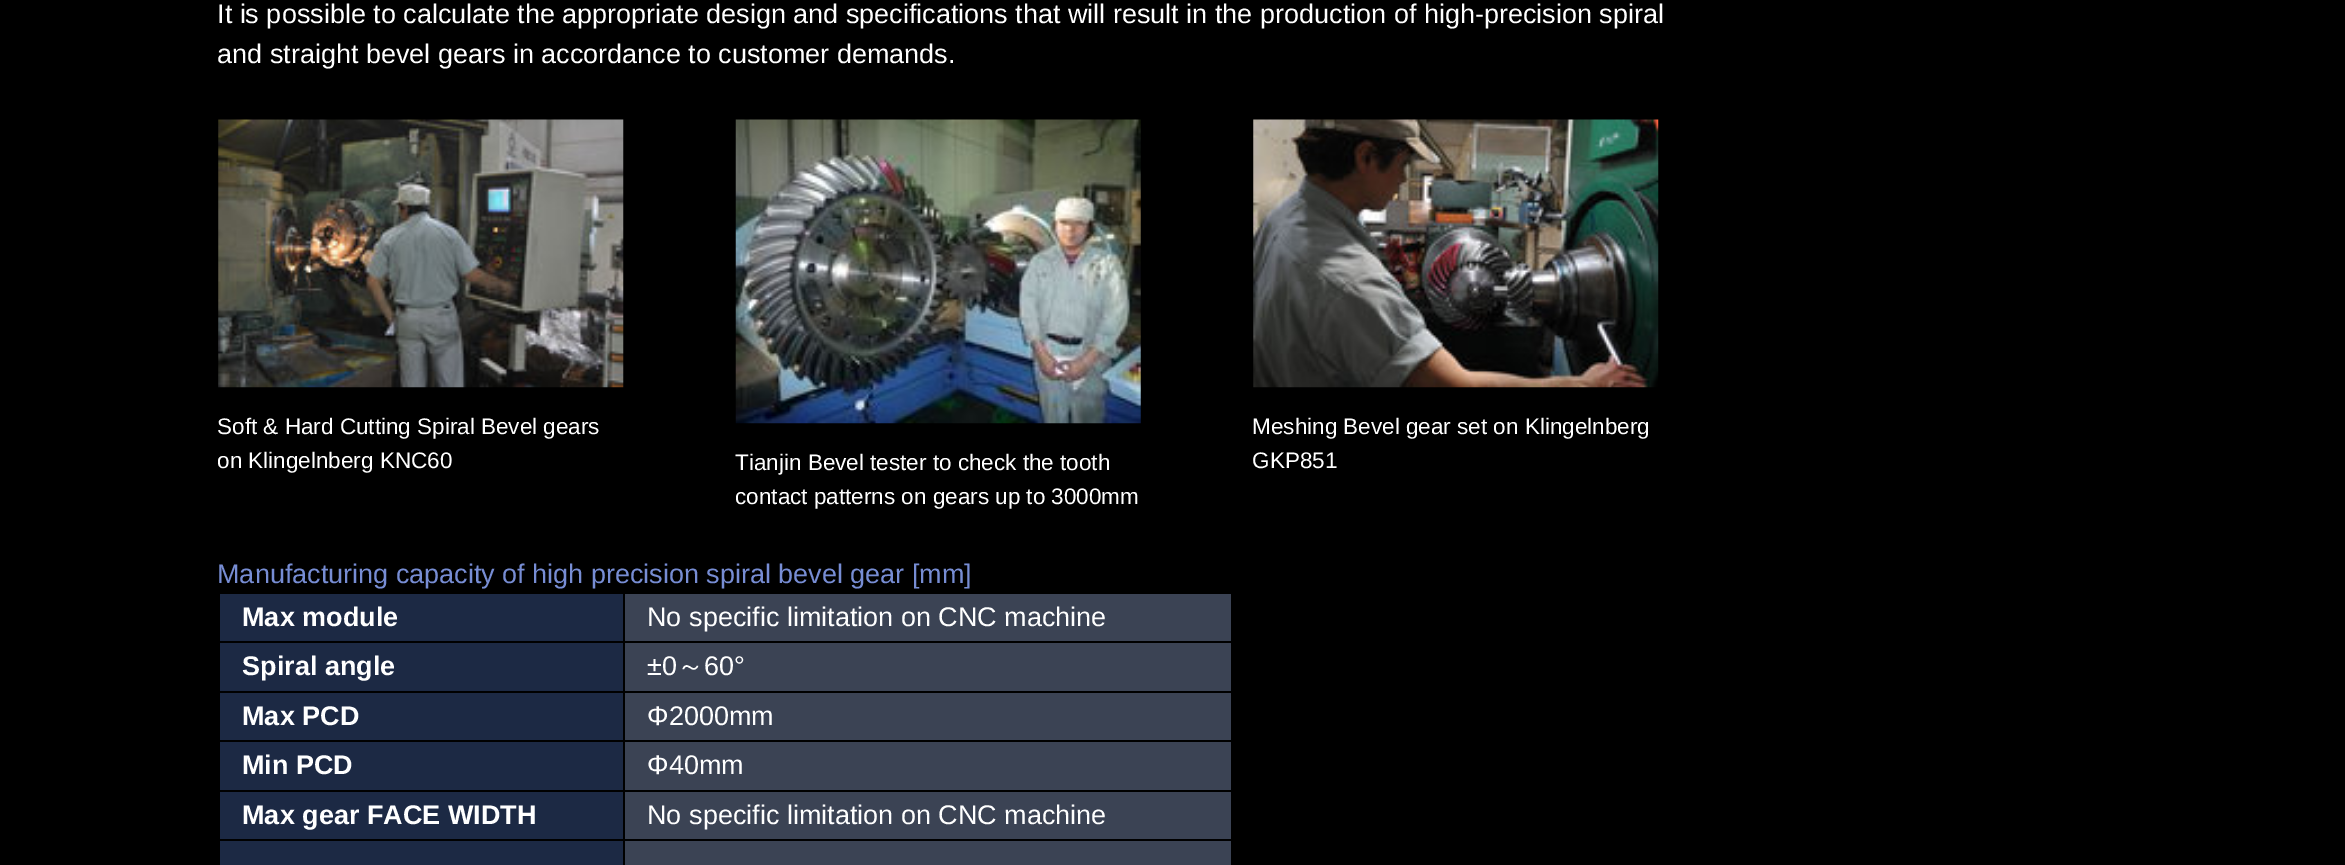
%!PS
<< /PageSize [2345 865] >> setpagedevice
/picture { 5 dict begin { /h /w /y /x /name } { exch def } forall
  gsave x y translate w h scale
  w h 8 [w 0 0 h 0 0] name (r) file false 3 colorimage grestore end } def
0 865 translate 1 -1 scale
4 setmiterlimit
0 setgray
0 0 2345 865 rectfill
/LiberationSans-Regular [27 0 0 -27 0 0] selectfont
1 setgray
217 23 moveto (It is possible to calculate the appropriate design and specifications that will result in the production of high-precision spiral) show
217 63 moveto (and straight bevel gears in accordance to customer demands.) show
(img1.rgb) 218 119 406 269 picture
/LiberationSans-Regular [22.5 0 0 -22.5 0 0] selectfont
217 434 moveto (Soft & Hard Cutting Spiral Bevel gears) show
217 468 moveto (on Klingelnberg KNC60) show
(img2.rgb) 1253 119 406 269 picture
1252 434 moveto (Meshing Bevel gear set on Klingelnberg) show
1252 468 moveto (GKP851) show
(img3.rgb) 735 119 406 305 picture
735 470 moveto (Tianjin Bevel tester to check the tooth) show
735 504 moveto (contact patterns on gears up to 3000mm) show
/LiberationSans-Regular [27 0 0 -27 0 0] selectfont
0.467 0.553 0.831 setrgbcolor
217 583 moveto (Manufacturing capacity of high precision spiral bevel gear [mm]) show
0.11 0.161 0.267 setrgbcolor
220 594 403 97 rectfill
/LiberationSans-Bold [27 0 0 -27 0 0] selectfont
1 setgray
242 626 moveto (Max module) show
0.231 0.263 0.329 setrgbcolor
625 594 606 97 rectfill
/LiberationSans-Regular [27 0 0 -27 0 0] selectfont
1 setgray
647 626 moveto (No specific limitation on CNC machine) show
/LiberationSans-Bold [27 0 0 -27 0 0] selectfont
242 675 moveto (Spiral angle) show
0 setgray
218 641 1015 2 rectfill
/LiberationSans-Regular [27 0 0 -27 0 0] selectfont
1 setgray
647 675 moveto (±0) show
/WenQuanYiZenHei-Medium [27 0 0 -27 0 0] selectfont
677 675 moveto (～) show
/LiberationSans-Regular [27 0 0 -27 0 0] selectfont
704 675 moveto (60°) show
0.11 0.161 0.267 setrgbcolor
220 693 403 97 rectfill
/LiberationSans-Bold [27 0 0 -27 0 0] selectfont
1 setgray
242 725 moveto (Max PCD) show
0.231 0.263 0.329 setrgbcolor
625 693 606 97 rectfill
/LiberationSans-Regular [27 0 0 -27 0 0] selectfont
1 setgray
647 725 moveto (Φ2000mm) show
/LiberationSans-Bold [27 0 0 -27 0 0] selectfont
242 774 moveto (Min PCD) show
0 setgray
218 740 1015 2 rectfill
/LiberationSans-Regular [27 0 0 -27 0 0] selectfont
1 setgray
647 774 moveto (Φ40mm) show
0.11 0.161 0.267 setrgbcolor
220 792 403 73 rectfill
/LiberationSans-Bold [27 0 0 -27 0 0] selectfont
1 setgray
242 824 moveto (Max gear FACE WIDTH) show
0.231 0.263 0.329 setrgbcolor
625 792 606 73 rectfill
/LiberationSans-Regular [27 0 0 -27 0 0] selectfont
1 setgray
647 824 moveto (No specific limitation on CNC machine) show
0 setgray
218 839 1015 2 rectfill
showpage
